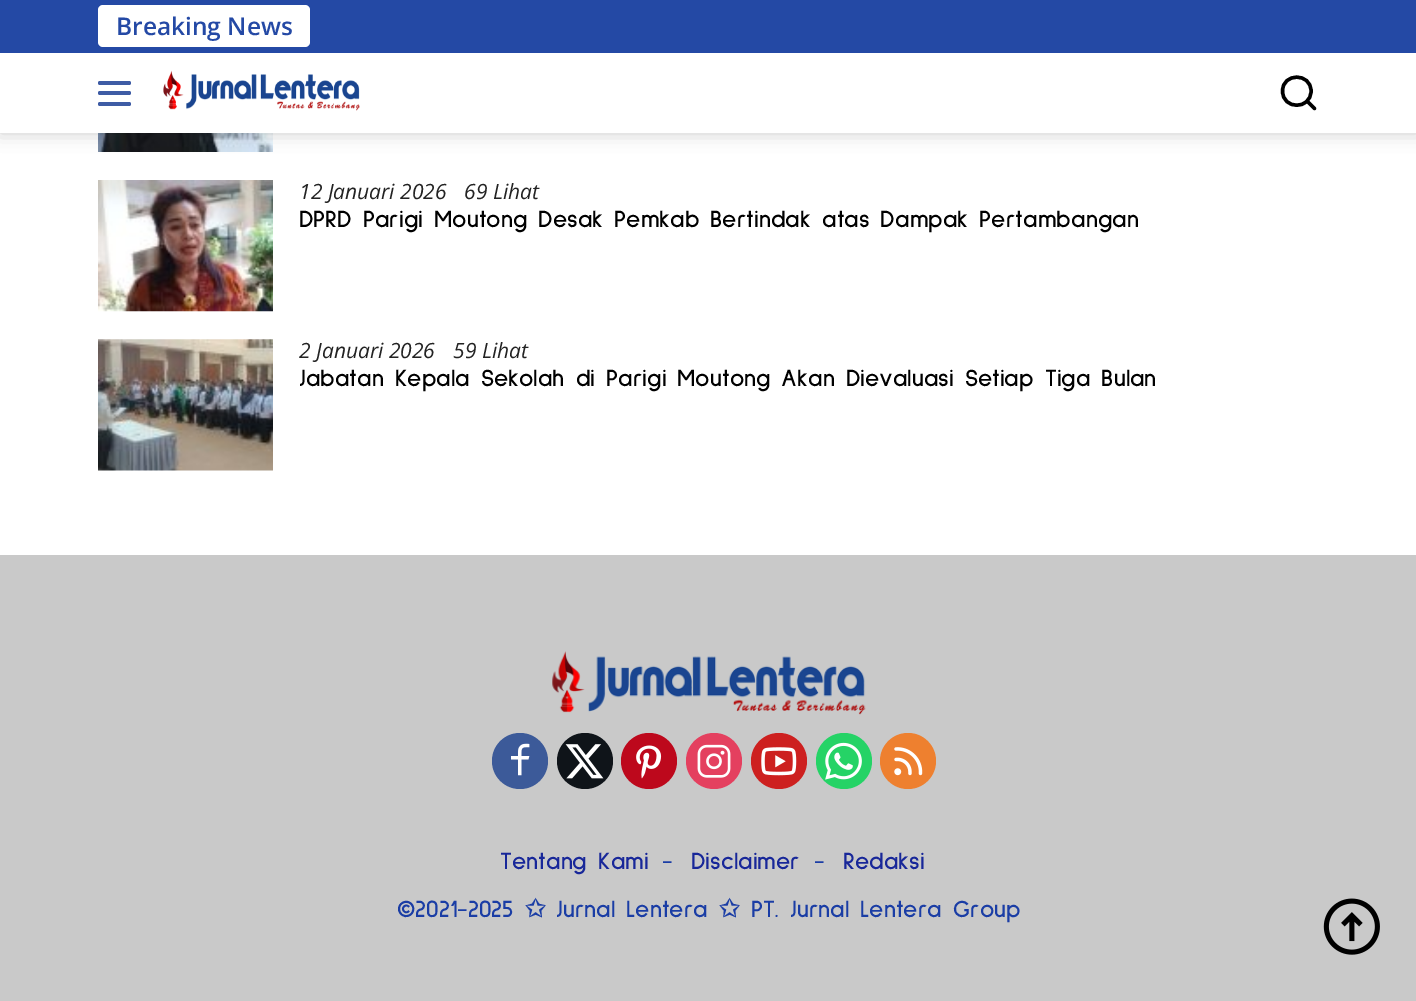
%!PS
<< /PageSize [1416 1001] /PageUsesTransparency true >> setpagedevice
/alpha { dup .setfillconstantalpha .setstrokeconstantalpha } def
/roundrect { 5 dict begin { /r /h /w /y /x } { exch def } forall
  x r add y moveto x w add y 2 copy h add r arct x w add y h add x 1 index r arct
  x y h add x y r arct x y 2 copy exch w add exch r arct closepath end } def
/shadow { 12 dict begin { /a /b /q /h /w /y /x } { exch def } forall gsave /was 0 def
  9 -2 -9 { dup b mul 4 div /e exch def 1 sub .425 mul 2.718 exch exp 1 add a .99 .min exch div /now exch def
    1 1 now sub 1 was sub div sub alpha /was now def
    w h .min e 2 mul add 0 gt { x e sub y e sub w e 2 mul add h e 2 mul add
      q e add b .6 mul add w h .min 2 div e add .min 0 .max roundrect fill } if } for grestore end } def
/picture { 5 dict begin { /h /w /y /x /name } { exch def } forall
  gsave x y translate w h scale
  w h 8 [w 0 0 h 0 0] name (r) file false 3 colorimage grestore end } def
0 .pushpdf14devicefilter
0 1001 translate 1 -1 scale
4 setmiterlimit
1 setgray
0 0 1416 1001 rectfill
(img2.rgb) 98 133 175 19 picture
0 setgray
0 0 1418 133 0 9 0.2 shadow
1 setgray
0 53 1416 80 rectfill
0.141 0.286 0.647 setrgbcolor
0 0 1416 53 rectfill
1 setgray
98 5 212 42 5 roundrect fill
/OpenSans-SemiBold [24.5 0 0 -24.5 0 0] selectfont
0.141 0.286 0.647 setrgbcolor
116 35 moveto (Breaking News) show
0.243 0.361 0.647 setrgbcolor
98 81 33 4 2 roundrect fill
98 91 33 4 2 roundrect fill
98 102 33 4 2 roundrect fill
(img1.rgb) 163 70 197 41 picture
0 setgray
3.4 setlinewidth
1 setlinecap
newpath 1314.5 108.5 moveto 1307 101 lineto 1311 91 moveto 1311 110 1282.5 110 1282.5 91 curveto 1282.5 72.5 1311 72.5 1311 91 curveto closepath stroke
(img3.rgb) 98 180 175 132 picture
/OpenSans-Italic [21 0 0 -21 0 0] selectfont
0.137 setgray
299 199 moveto (12 Januari 2026) show
464 199 moveto (69 Lihat) show
/SulphurPoint-Bold [24.5 0 0 -24.5 0 0] selectfont
0 setgray
299 227 moveto (DPRD Parigi Moutong Desak Pemkab Bertindak atas Dampak Pertambangan) show
(img4.rgb) 98 339 175 132 picture
/OpenSans-Italic [21 0 0 -21 0 0] selectfont
0.137 setgray
299 358 moveto (2 Januari 2026) show
453 358 moveto (59 Lihat) show
/SulphurPoint-Bold [24.5 0 0 -24.5 0 0] selectfont
0 setgray
299 386 moveto (Jabatan Kepala Sekolah di Parigi Moutong Akan Dievaluasi Setiap Tiga Bulan) show
0.788 setgray
0 555 1416 446 rectfill
(img5.rgb) 552 651 314 64 picture
0.235 0.353 0.6 setrgbcolor
newpath 520 761 28 0 360 arc closepath fill
(img6.rgb) 511 743 19 33 picture
0.059 0.078 0.098 setrgbcolor
newpath 585 761 28 0 360 arc closepath fill
(img7.rgb) 565 744 39 35 picture
0.741 0.031 0.11 setrgbcolor
newpath 649 761 28 0 360 arc closepath fill
(img8.rgb) 636 745 26 34 picture
0.894 0.251 0.373 setrgbcolor
newpath 714 761 28 0 360 arc closepath fill
(img9.rgb) 697 744 34 34 picture
0.804 0.125 0.122 setrgbcolor
newpath 779 761 28 0 360 arc closepath fill
(img10.rgb) 761 747 36 29 picture
0.145 0.827 0.4 setrgbcolor
newpath 844 761 28 0 360 arc closepath fill
(img11.rgb) 825 742 37 38 picture
0.933 0.502 0.184 setrgbcolor
newpath 908 761 28 0 360 arc closepath fill
(img12.rgb) 894 747 29 29 picture
0.094 0.153 0.6 setrgbcolor
500 869 moveto (Tentang Kami) show
0.102 0.239 0.647 setrgbcolor
662 869 moveto (-) show
0.094 0.153 0.6 setrgbcolor
691 869 moveto (Disclaimer) show
0.102 0.239 0.647 setrgbcolor
814 869 moveto (-) show
0.094 0.153 0.6 setrgbcolor
843 869 moveto (Redaksi) show
0.102 0.239 0.647 setrgbcolor
397 917 moveto (©2021-2025) show
/DejaVuSans-Bold [24.5 0 0 -24.5 0 0] selectfont
525 917 moveto (✩) show
/SulphurPoint-Bold [24.5 0 0 -24.5 0 0] selectfont
556 917 moveto (Jurnal Lentera) show
/DejaVuSans-Bold [24.5 0 0 -24.5 0 0] selectfont
719 917 moveto (✩) show
/SulphurPoint-Bold [24.5 0 0 -24.5 0 0] selectfont
751 917 moveto (PT. Jurnal Lentera Group) show
(img13.rgb) 1323 898 57 57 picture
.poppdf14devicefilter showpage
